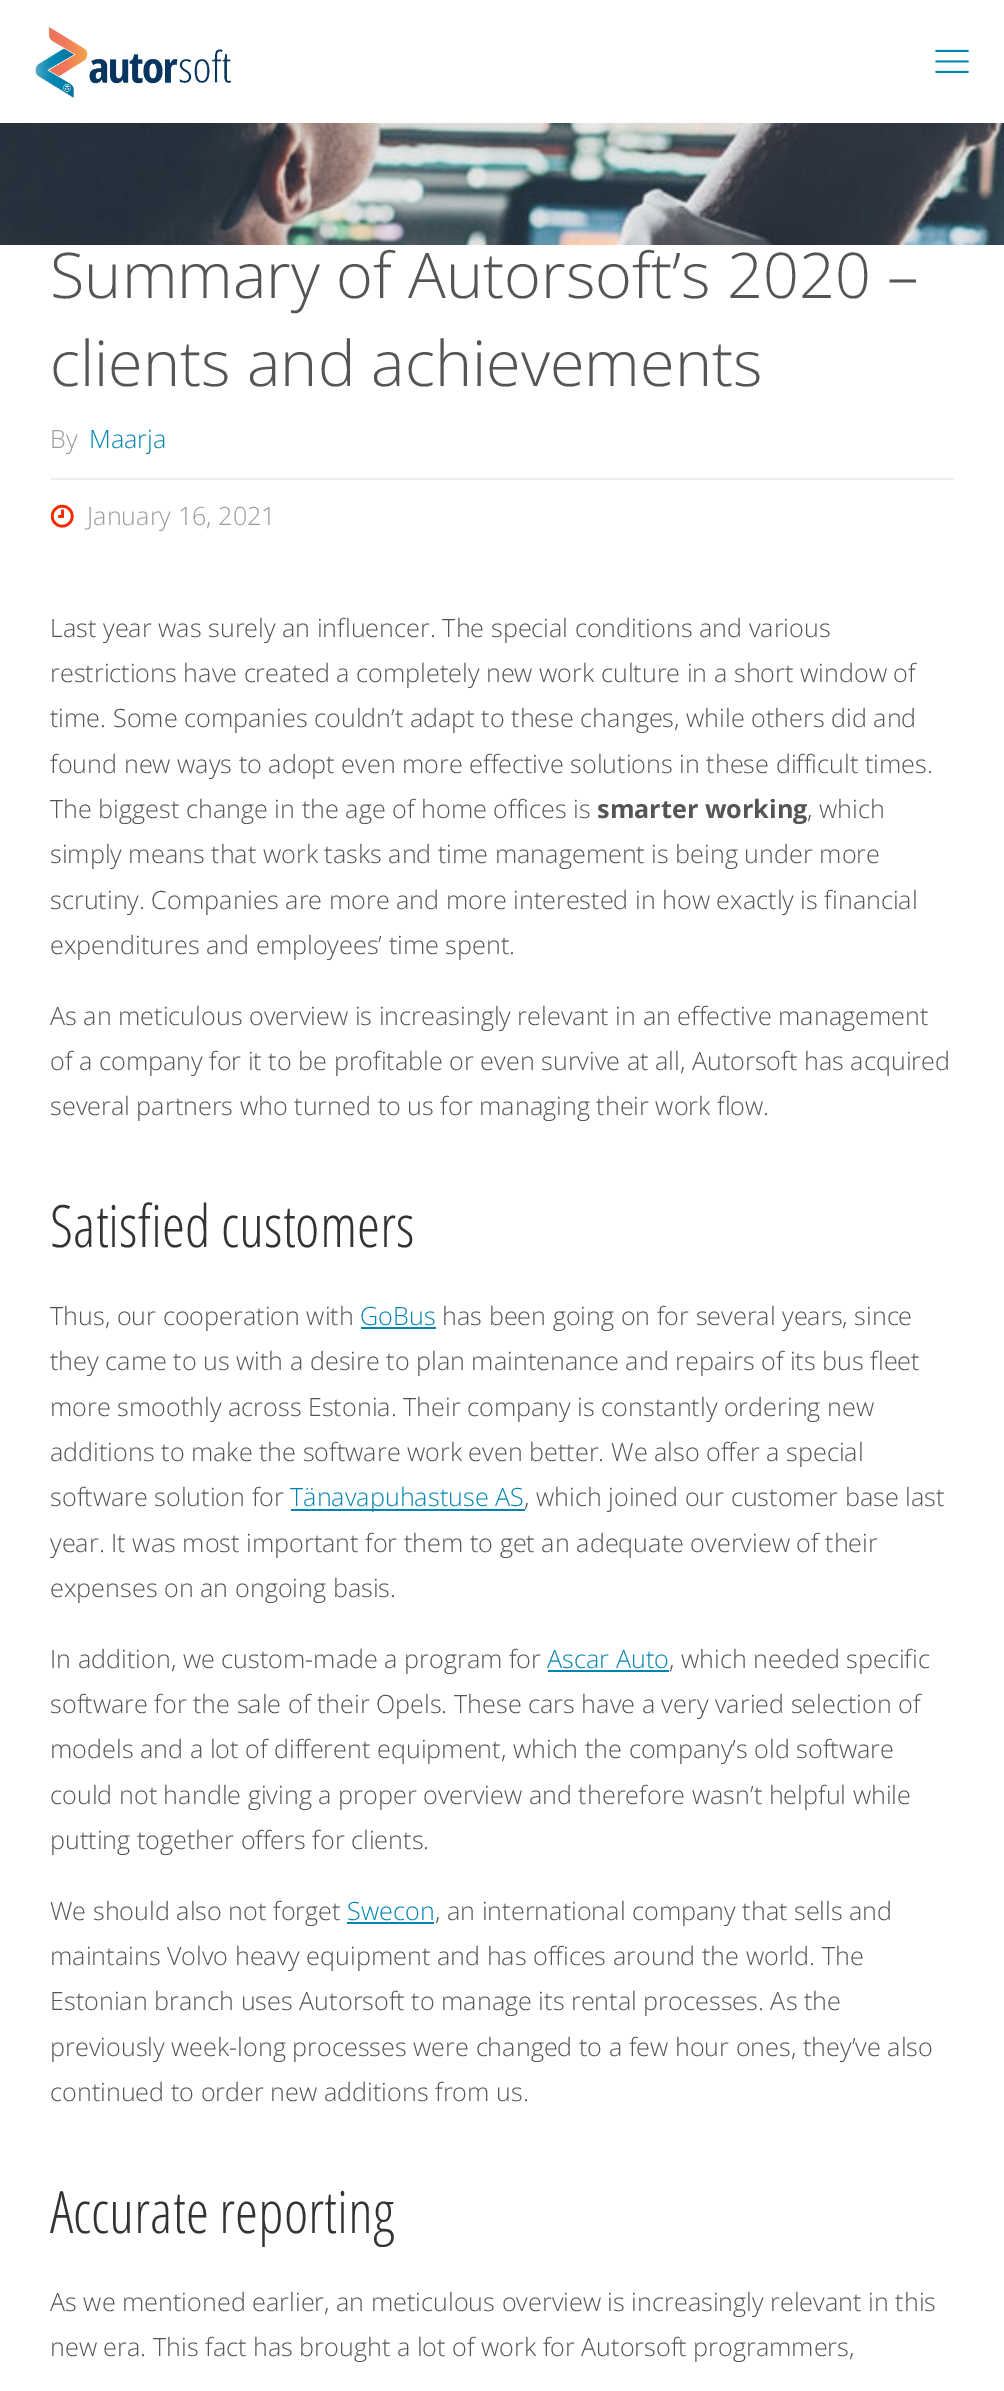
%!PS
<< /PageSize [1004 2391] >> setpagedevice
/picture { 5 dict begin { /h /w /y /x /name } { exch def } forall
  gsave x y translate w h scale
  w h 8 [w 0 0 h 0 0] name (r) file false 3 colorimage grestore end } def
0 2391 translate 1 -1 scale
4 setmiterlimit
1 setgray
0 0 1004 2391 rectfill
(img1.rgb) 35 27 196 71 picture
(img2.rgb) 935 49 34 24 picture
(img3.rgb) 0 123 1004 122 picture
/OpenSans-Light [63 0 0 -63 0 0] selectfont
0.333 setgray
50 298 moveto (Summary of Autorsoft’s 2020 –) show
50 386 moveto (clients and achievements) show
0.933 setgray
51 478 903 2 rectfill
/OpenSans-Light [25.2 0 0 -25.2 0 0] selectfont
0.604 setgray
50 448 moveto (By) show
0 0.522 0.698 setrgbcolor
89 448 moveto (Maarja) show
(img4.rgb) 51 504 23 24 picture
0.604 setgray
87 525 moveto (January 16, 2021) show
0.333 setgray
50 637 moveto (Last year was surely an influencer. The special conditions and various) show
50 682 moveto (restrictions have created a completely new work culture in a short window of) show
50 727 moveto (time. Some companies couldn’t adapt to these changes, while others did and) show
50 773 moveto (found new ways to adopt even more effective solutions in these difficult times.) show
50 818 moveto (The biggest change in the age of home offices is) show
/OpenSans-Bold [25.2 0 0 -25.2 0 0] selectfont
597 818 moveto (smarter working) show
/OpenSans-Light [25.2 0 0 -25.2 0 0] selectfont
807 818 moveto (, which) show
50 863 moveto (simply means that work tasks and time management is being under more) show
50 909 moveto (scrutiny. Companies are more and more interested in how exactly is financial) show
50 954 moveto (expenditures and employees’ time spent.) show
50 1025 moveto (As an meticulous overview is increasingly relevant in an effective management) show
50 1070 moveto (of a company for it to be profitable or even survive at all, Autorsoft has acquired) show
50 1115 moveto (several partners who turned to us for managing their work flow.) show
/OpenSansCondensed-Light [58.5 0 0 -58.5 0 0] selectfont
0.2 setgray
50 1247 moveto (Satisfied customers) show
/OpenSans-Light [25.2 0 0 -25.2 0 0] selectfont
0.333 setgray
50 1325 moveto (Thus, our cooperation with) show
0 0.522 0.698 setrgbcolor
360 1325 moveto (GoBus) show
361 1327 75 2 rectfill
0.333 setgray
442 1325 moveto (has been going on for several years, since) show
50 1370 moveto (they came to us with a desire to plan maintenance and repairs of its bus fleet) show
50 1416 moveto (more smoothly across Estonia. Their company is constantly ordering new) show
50 1461 moveto (additions to make the software work even better. We also offer a special) show
50 1506 moveto (software solution for) show
0 0.522 0.698 setrgbcolor
291 1509 234 2 rectfill
290 1506 moveto (Tänavapuhastuse AS) show
0.333 setgray
524 1506 moveto (, which joined our customer base last) show
50 1552 moveto (year. It was most important for them to get an adequate overview of their) show
50 1597 moveto (expenses on an ongoing basis.) show
50 1668 moveto (In addition, we custom-made a program for) show
0 0.522 0.698 setrgbcolor
547 1668 moveto (Ascar Auto) show
548 1670 121 2 rectfill
0.333 setgray
669 1668 moveto (, which needed specific) show
50 1713 moveto (software for the sale of their Opels. These cars have a very varied selection of) show
50 1758 moveto (models and a lot of different equipment, which the company’s old software) show
50 1804 moveto (could not handle giving a proper overview and therefore wasn’t helpful while) show
50 1849 moveto (putting together offers for clients.) show
50 1920 moveto (We should also not forget) show
0 0.522 0.698 setrgbcolor
347 1920 moveto (Swecon) show
347 1922 87 2 rectfill
0.333 setgray
435 1920 moveto (, an international company that sells and) show
50 1965 moveto (maintains Volvo heavy equipment and has offices around the world. The) show
50 2010 moveto (Estonian branch uses Autorsoft to manage its rental processes. As the) show
50 2056 moveto (previously week-long processes were changed to a few hour ones, they’ve also) show
50 2101 moveto (continued to order new additions from us.) show
/OpenSansCondensed-Light [58.5 0 0 -58.5 0 0] selectfont
0.2 setgray
50 2233 moveto (Accurate reporting) show
/OpenSans-Light [25.2 0 0 -25.2 0 0] selectfont
0.333 setgray
50 2311 moveto (As we mentioned earlier, an meticulous overview is increasingly relevant in this) show
50 2356 moveto (new era. This fact has brought a lot of work for Autorsoft programmers,) show
showpage
